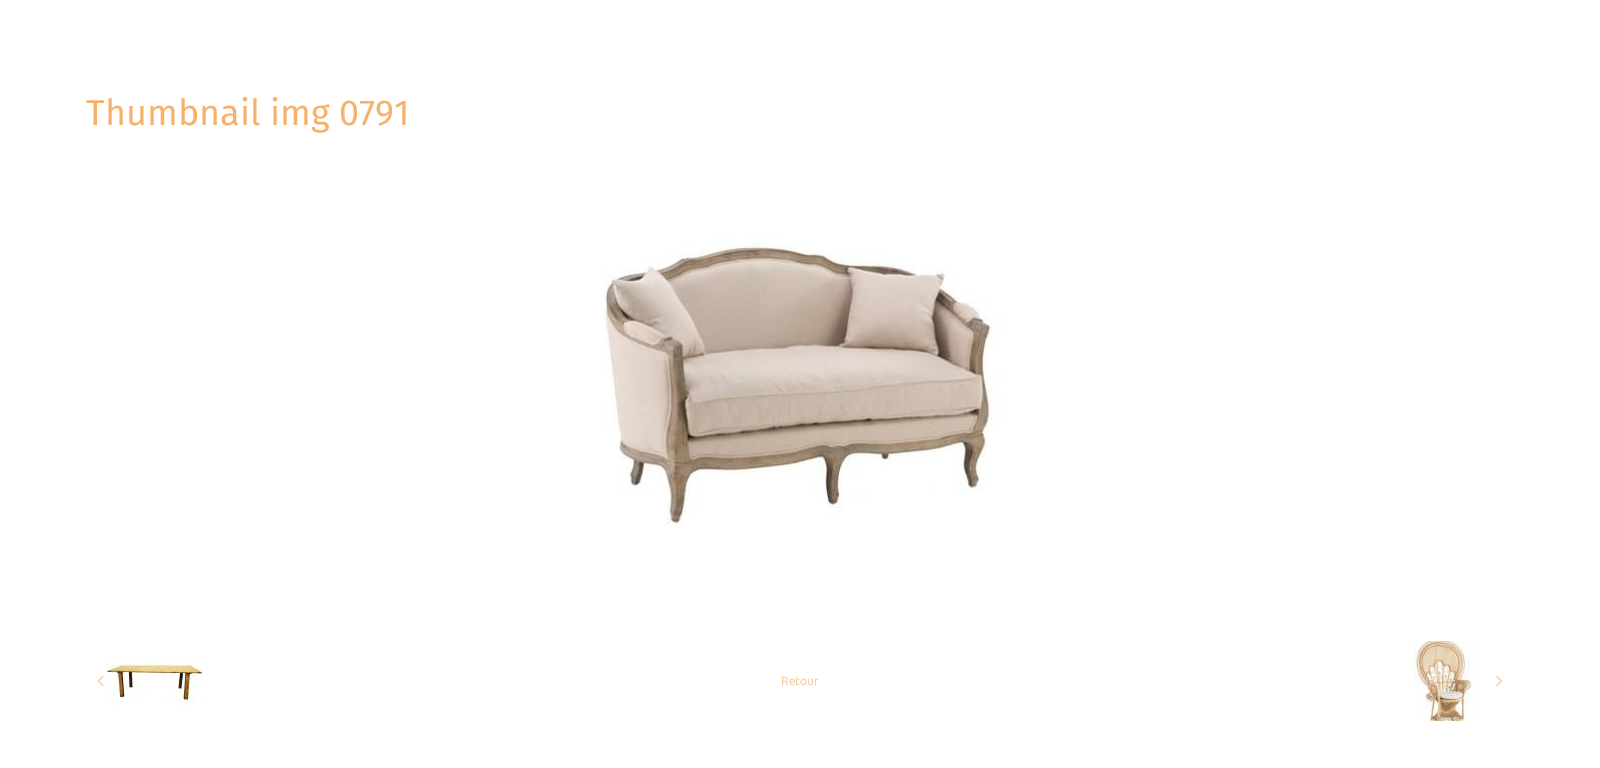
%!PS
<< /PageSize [1600 768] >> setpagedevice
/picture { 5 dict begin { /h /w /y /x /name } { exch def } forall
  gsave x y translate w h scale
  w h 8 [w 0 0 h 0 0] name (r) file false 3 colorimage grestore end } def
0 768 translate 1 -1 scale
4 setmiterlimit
1 setgray
0 0 1600 768 rectfill
/FiraSans-Regular [36 0 0 -36 0 0] selectfont
0.965 0.698 0.42 setrgbcolor
86 125 moveto (Thumbnail img 0791) show
(img1.rgb) 603 236 400 289 picture
(img2.rgb) 97 675 7 12 picture
(img3.rgb) 107 656 95 49 picture
/Ubuntu-Regular [12 0 0 -12 0 0] selectfont
0.976 0.796 0.612 setrgbcolor
781 685 moveto (Retour) show
(img4.rgb) 1414 641 64 80 picture
(img5.rgb) 1496 676 6 10 picture
showpage
